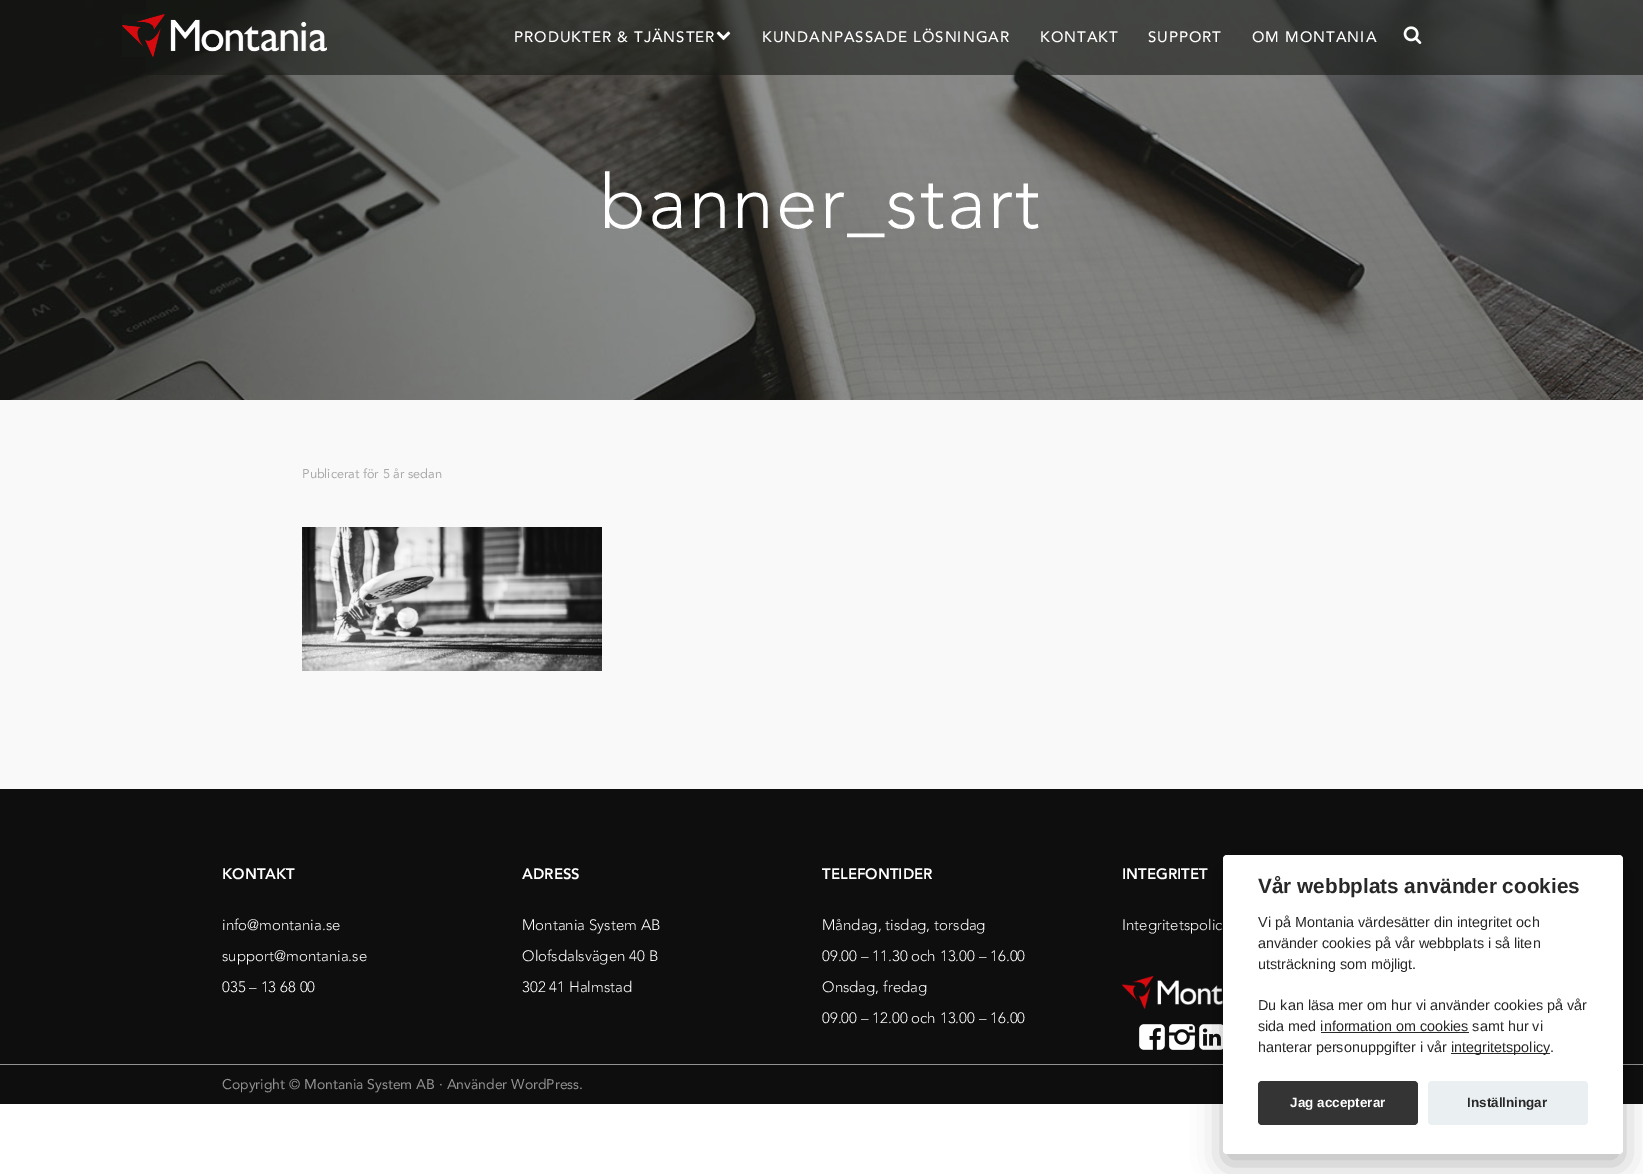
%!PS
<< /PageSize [1643 1174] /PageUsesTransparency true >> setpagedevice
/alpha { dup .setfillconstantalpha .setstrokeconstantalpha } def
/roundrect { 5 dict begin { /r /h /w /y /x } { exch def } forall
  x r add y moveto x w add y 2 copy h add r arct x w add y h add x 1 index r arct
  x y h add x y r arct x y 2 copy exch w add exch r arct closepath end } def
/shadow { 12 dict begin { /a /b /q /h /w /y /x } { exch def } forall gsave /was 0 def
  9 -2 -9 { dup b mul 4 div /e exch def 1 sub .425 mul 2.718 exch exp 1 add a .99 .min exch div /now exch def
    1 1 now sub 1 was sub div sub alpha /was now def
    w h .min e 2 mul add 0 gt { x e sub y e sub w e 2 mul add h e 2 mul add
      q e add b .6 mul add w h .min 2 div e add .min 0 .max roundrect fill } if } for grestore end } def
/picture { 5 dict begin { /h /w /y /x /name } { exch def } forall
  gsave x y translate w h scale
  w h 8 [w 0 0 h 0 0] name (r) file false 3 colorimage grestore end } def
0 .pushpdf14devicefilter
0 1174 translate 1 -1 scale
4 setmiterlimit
1 setgray
0 0 1643 1174 rectfill
(img4.rgb) 0 0 1643 400 picture
0.6 alpha
0.086 0.094 0.078 setrgbcolor
146 0 1497 75 rectfill
1 alpha
(img1.rgb) 122 14 205 43 picture
/Avenir-Medium [15 0 0 -15 0 0] selectfont
1 setgray
514 42 moveto 1 0 (PRODUKTER & TJÄNSTER) ashow
(img2.rgb) 716 31 15 10 picture
762 42 moveto 1 0 (KUNDANPASSADE LÖSNINGAR) ashow
1040 42 moveto 1 0 (KONTAKT) ashow
1148 42 moveto 1 0 (SUPPORT) ashow
1252 42 moveto 1 0 (OM MONTANIA) ashow
(img3.rgb) 1403 26 19 18 picture
/Avenir-Light [75 0 0 -75 0 0] selectfont
600 228 moveto 2 0 (banner_start) ashow
0.976 setgray
0 400 1643 389 rectfill
/Avenir-Regular [12.75 0 0 -12.75 0 0] selectfont
0.667 setgray
302 478 moveto (Publicerat för 5 år sedan) show
(img5.rgb) 302 527 300 144 picture
0.055 setgray
0 789 1643 275 rectfill
/Avenir-Black [15 0 0 -15 0 0] selectfont
1 setgray
222 879 moveto (KONTAKT) show
/Avenir-Light [15 0 0 -15 0 0] selectfont
222 930 moveto (info@montania.se) show
222 961 moveto (support@montania.se) show
222 992 moveto (035 – 13 68 00) show
/Avenir-Black [15 0 0 -15 0 0] selectfont
522 879 moveto (ADRESS) show
/Avenir-Light [15 0 0 -15 0 0] selectfont
522 930 moveto (Montania System AB) show
522 961 moveto (Olofsdalsvägen 40 B) show
522 992 moveto (302 41 Halmstad) show
/Avenir-Black [15 0 0 -15 0 0] selectfont
822 879 moveto (TELEFONTIDER) show
/Avenir-Light [15 0 0 -15 0 0] selectfont
822 930 moveto (Måndag, tisdag, torsdag) show
822 961 moveto (09.00 – 11.30 och 13.00 – 16.00) show
822 992 moveto (Onsdag, fredag) show
822 1023 moveto (09.00 – 12.00 och 13.00 – 16.00) show
/Avenir-Black [15 0 0 -15 0 0] selectfont
1122 879 moveto (INTEGRITET) show
/Avenir-Light [15 0 0 -15 0 0] selectfont
1122 930 moveto (Integritetspolic) show
(img6.rgb) 1122 976 101 33 picture
(img7.rgb) 1139 1024 26 26 picture
(img8.rgb) 1169 1024 26 26 picture
(img9.rgb) 1199 1024 24 26 picture
0.055 setgray
0 1065 1643 39 rectfill
0.573 setgray
0 1064 1643 1 rectfill
/Avenir-Regular [14 0 0 -14 0 0] selectfont
222 1089 moveto (Copyright © Montania System AB · Använder WordPress.) show
0.008 0.008 0.012 setrgbcolor
1223 865 400 299 4 15 0.28 shadow
1 setgray
1223 855 400 299 4 roundrect fill
/LiberationSans-Bold [20.75 0 0 -20.75 0 0] selectfont
0.157 setgray
1258 893 moveto (Vår webbplats använder cookies) show
/LiberationSans-Regular [14.4 0 0 -14.4 0 0] selectfont
1258 927 moveto (Vi på Montania värdesätter din integritet och) show
1258 948 moveto (använder cookies på vår webbplats i så liten) show
1258 969 moveto (utsträckning som möjligt.) show
1258 1010 moveto (Du kan läsa mer om hur vi använder cookies på vår) show
1258 1031 moveto (sida med information om cookies samt hur vi) show
1321 1032 148 1 rectfill
1258 1052 moveto (hanterar personuppgifter i vår) show
1451 1053 99 1 rectfill
1451 1052 moveto (integritetspolicy.) show
0.204 setgray
1258 1081 160 44 4 roundrect fill
/LiberationSans-Bold [13.5 0 0 -13.5 0 0] selectfont
1 setgray
1290 1107 moveto (Jag accepterar) show
0.918 0.937 0.949 setrgbcolor
1428 1081 160 44 4 roundrect fill
0.157 setgray
1467 1107 moveto (Inställningar) show
.poppdf14devicefilter showpage
